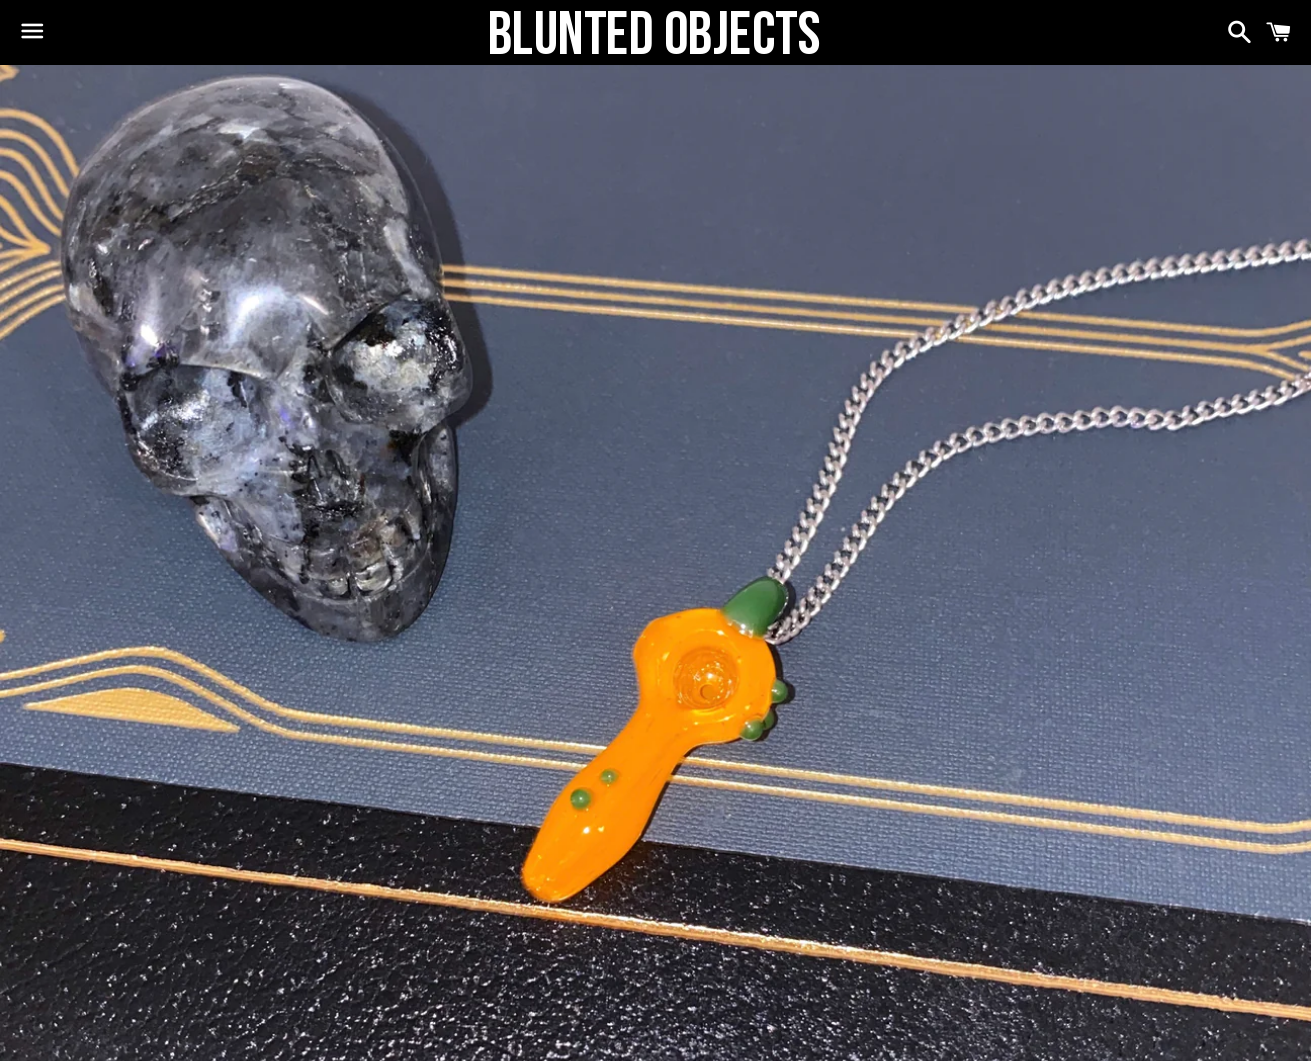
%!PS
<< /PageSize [1311 1061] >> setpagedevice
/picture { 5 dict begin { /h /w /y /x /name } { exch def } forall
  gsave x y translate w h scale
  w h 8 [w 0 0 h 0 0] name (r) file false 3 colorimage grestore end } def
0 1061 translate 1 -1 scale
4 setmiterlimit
1 setgray
0 0 1311 1061 rectfill
0 setgray
0 0 1311 65 rectfill
(img1.rgb) 21 23 23 16 picture
(img2.rgb) 490 11 330 43 picture
(img3.rgb) 1228 20 23 24 picture
(img4.rgb) 1266 22 25 20 picture
(img5.rgb) 0 65 1311 996 picture
showpage
